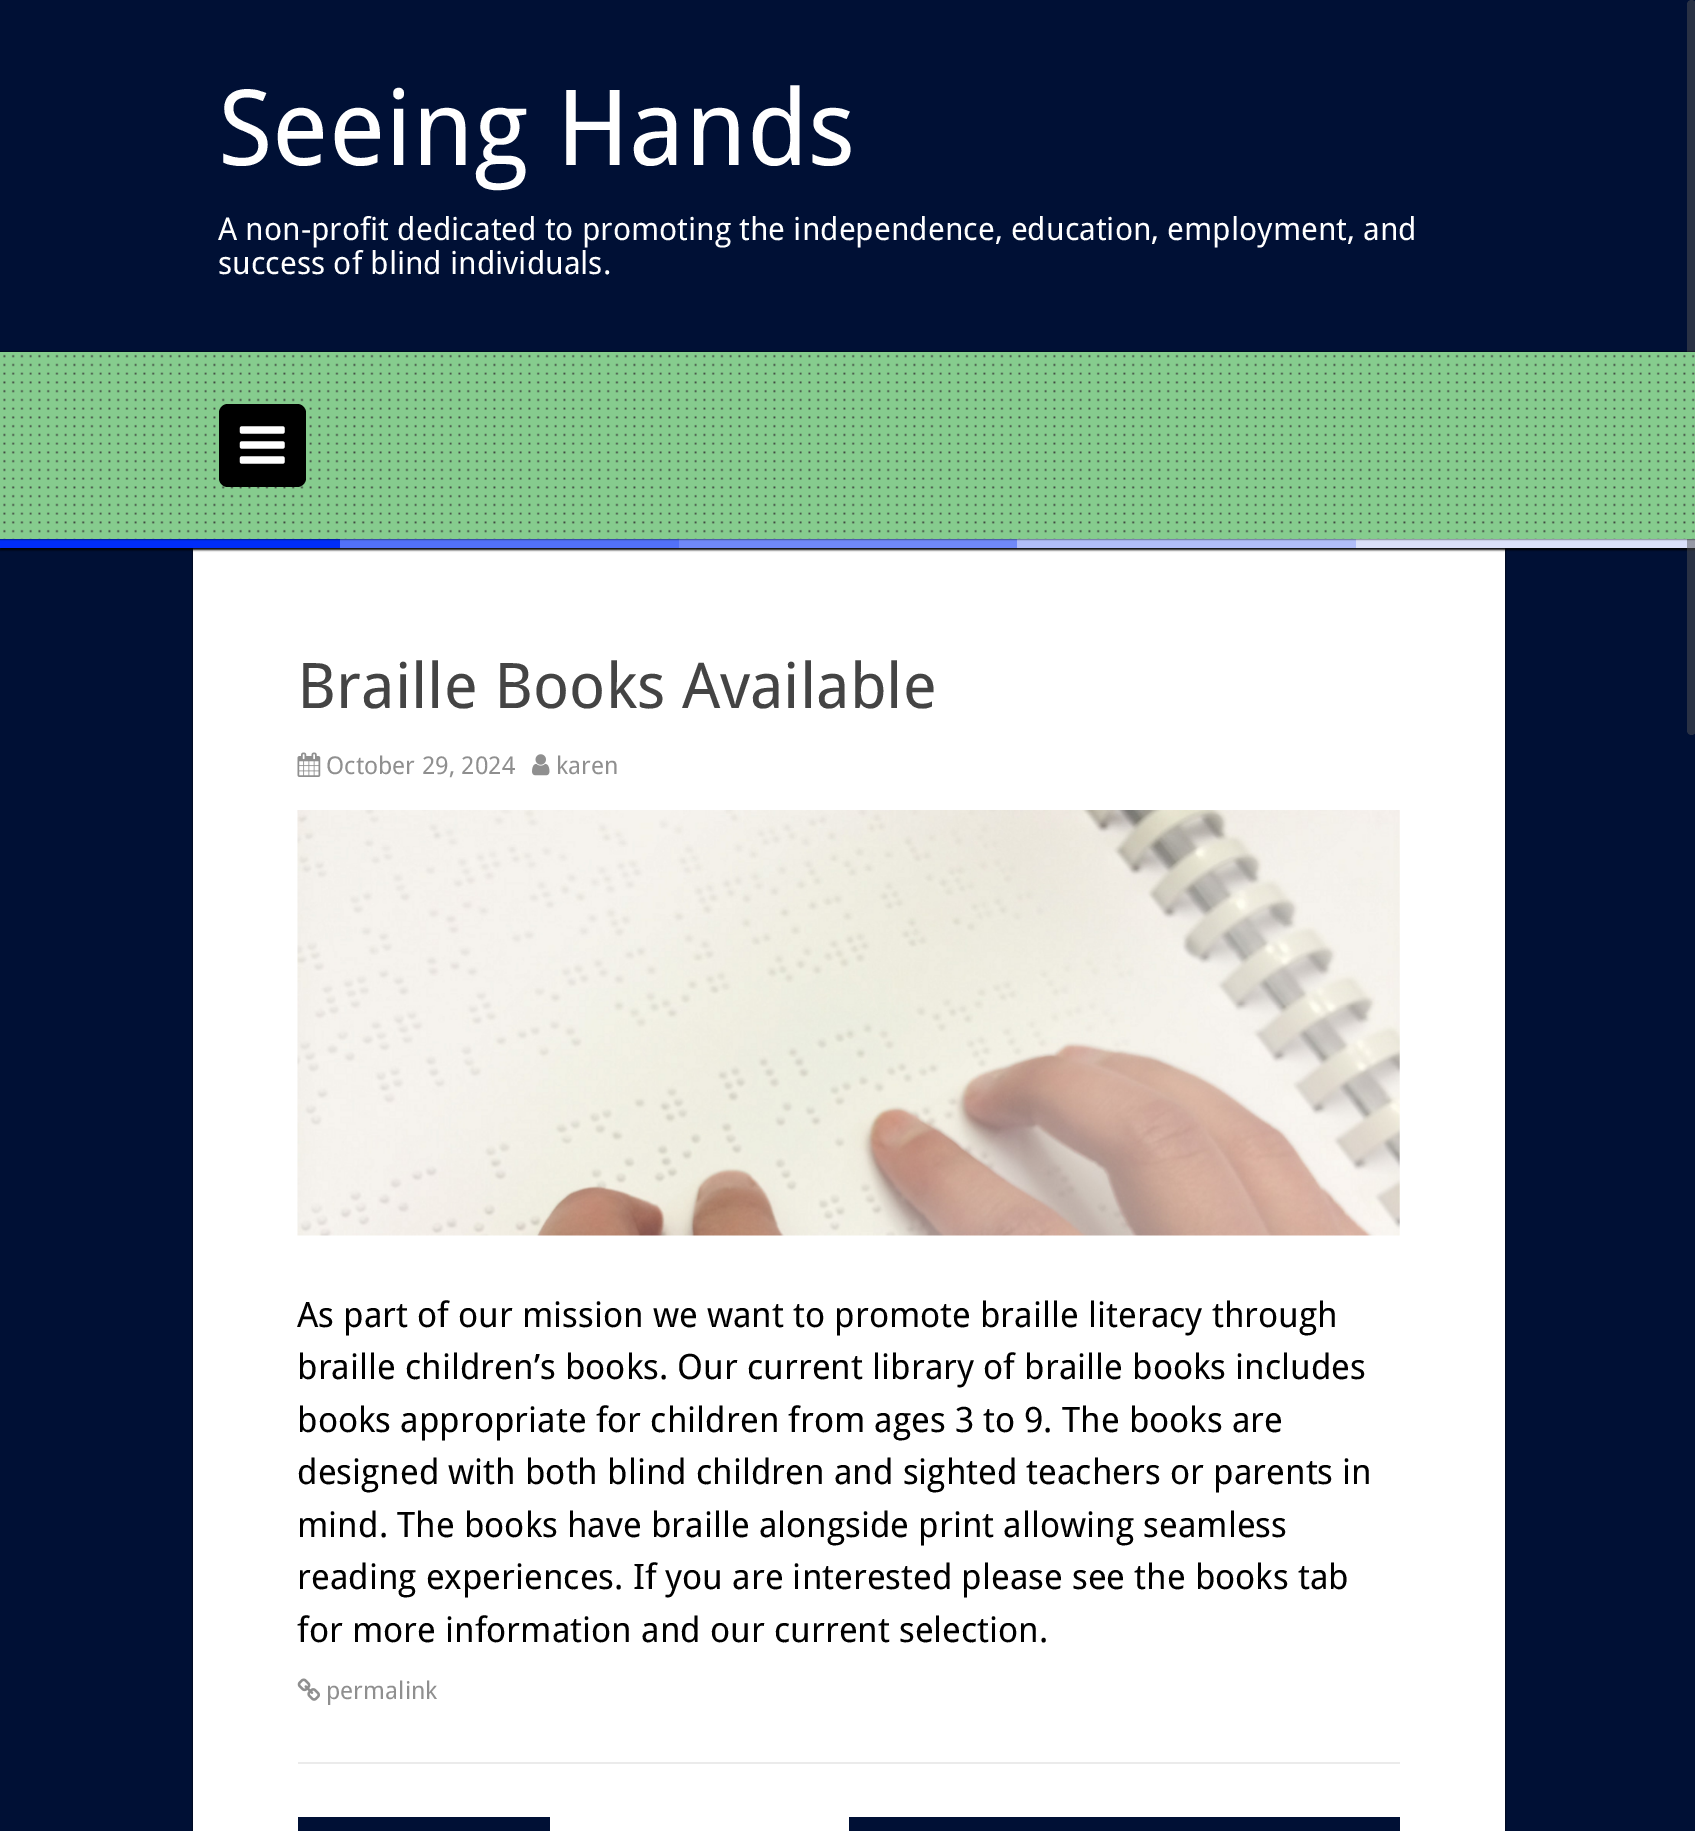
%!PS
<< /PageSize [1695 1831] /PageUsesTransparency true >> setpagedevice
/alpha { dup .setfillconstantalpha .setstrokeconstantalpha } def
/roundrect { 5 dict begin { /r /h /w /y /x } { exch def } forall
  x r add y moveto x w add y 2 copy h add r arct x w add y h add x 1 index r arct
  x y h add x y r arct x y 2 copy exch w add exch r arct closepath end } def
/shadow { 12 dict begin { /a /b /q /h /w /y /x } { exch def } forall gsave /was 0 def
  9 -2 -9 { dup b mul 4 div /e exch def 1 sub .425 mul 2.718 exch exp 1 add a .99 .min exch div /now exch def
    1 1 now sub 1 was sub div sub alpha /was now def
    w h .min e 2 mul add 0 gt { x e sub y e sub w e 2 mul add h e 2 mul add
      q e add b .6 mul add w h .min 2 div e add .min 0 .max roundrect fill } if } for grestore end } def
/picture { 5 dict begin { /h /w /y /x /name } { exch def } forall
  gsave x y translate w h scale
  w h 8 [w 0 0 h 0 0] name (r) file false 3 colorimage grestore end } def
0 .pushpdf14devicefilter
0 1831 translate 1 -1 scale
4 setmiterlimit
0 0.063 0.208 setrgbcolor
0 0 1695 1831 rectfill
/DroidSans-Regular [105 0 0 -105 0 0] selectfont
1 setgray
218 165 moveto (Seeing Hands) show
/DroidSans-Regular [31.5 0 0 -31.5 0 0] selectfont
218 240 moveto (A non-profit dedicated to promoting the independence, education, employment, and) show
218 274 moveto (success of blind individuals.) show
0 setgray
193 550 1312 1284 0 1 1 shadow
1 setgray
193 548 1312 1283 rectfill
0 setgray
0 541 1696 9 0 1 1 shadow
0 0.176 0.976 setrgbcolor
0 539 340 9 rectfill
0.322 0.443 0.976 setrgbcolor
340 539 339 9 rectfill
0.439 0.537 0.976 setrgbcolor
679 539 338 9 rectfill
0.694 0.745 0.976 setrgbcolor
1017 539 339 9 rectfill
0.859 0.882 0.976 setrgbcolor
1356 539 339 9 rectfill
0.5 alpha
0.322 setgray
1687 0 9 735 4.5 roundrect fill
1 alpha
0 setgray
0 352 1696 187 0 1 1 shadow
0.525 0.8 0.557 setrgbcolor
0 352 1695 187 rectfill
(img1.rgb) 3 354 1692 185 picture
0 setgray
219 404 87 83 9 roundrect fill
(img2.rgb) 239 426 46 38 picture
0.922 setgray
298 1762 1102 2 rectfill
/DroidSans-Regular [63 0 0 -63 0 0] selectfont
0.267 setgray
297 708 moveto (Braille Books Available) show
(img3.rgb) 297 752 24 25 picture
/DroidSans-Regular [24.5 0 0 -24.5 0 0] selectfont
0.561 setgray
326 774 moveto (October 29, 2024) show
(img4.rgb) 532 754 18 22 picture
556 774 moveto (karen) show
(img5.rgb) 297 810 1103 426 picture
/DroidSans-Regular [35 0 0 -35 0 0] selectfont
0 setgray
297 1327 moveto (As part of our mission we want to promote braille literacy through) show
297 1379 moveto (braille children’s books. Our current library of braille books includes) show
297 1432 moveto (books appropriate for children from ages 3 to 9. The books are) show
297 1484 moveto (designed with both blind children and sighted teachers or parents in) show
297 1537 moveto (mind. The books have braille alongside print allowing seamless) show
297 1589 moveto (reading experiences. If you are interested please see the books tab) show
297 1642 moveto (for more information and our current selection.) show
(img6.rgb) 297 1678 23 23 picture
/DroidSans-Regular [24.5 0 0 -24.5 0 0] selectfont
0.561 setgray
326 1699 moveto (permalink) show
0 0.063 0.208 setrgbcolor
298 1817 252 14 rectfill
849 1817 551 14 rectfill
.poppdf14devicefilter showpage
